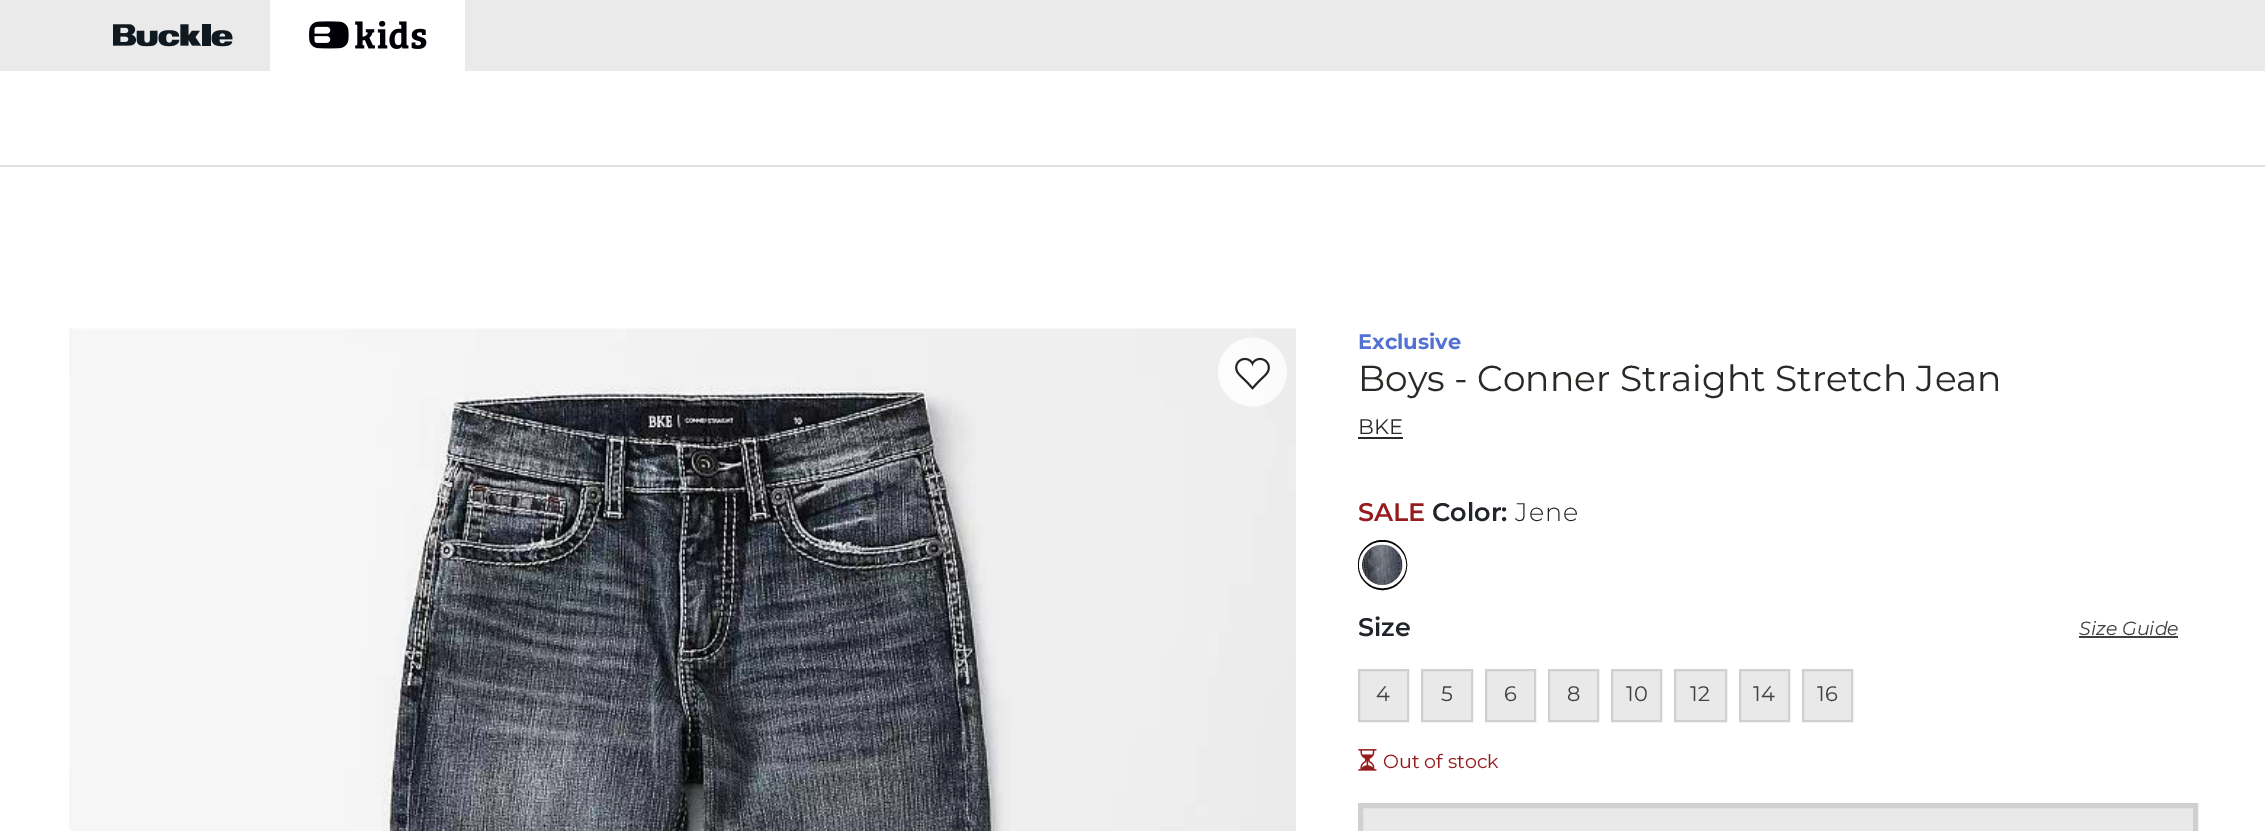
%!PS
<< /PageSize [2265 831] >> setpagedevice
/roundrect { 5 dict begin { /r /h /w /y /x } { exch def } forall
  x r add y moveto x w add y 2 copy h add r arct x w add y h add x 1 index r arct
  x y h add x y r arct x y 2 copy exch w add exch r arct closepath end } def
/picture { 5 dict begin { /h /w /y /x /name } { exch def } forall
  gsave x y translate w h scale
  w h 8 [w 0 0 h 0 0] name (r) file false 3 colorimage grestore end } def
0 831 translate 1 -1 scale
4 setmiterlimit
1 setgray
0 0 2265 831 rectfill
0.882 setgray
0 165 2265 2 rectfill
0.918 setgray
0 0 2265 71 rectfill
(img1.rgb) 113 24 120 23 picture
1 setgray
270 0 195 71 rectfill
(img2.rgb) 309 20 118 29 picture
(img3.rgb) 69 328 1227 503 picture
(img4.rgb) 1218 337 69 70 picture
/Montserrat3-Thin [21 0 0 -21 0 0] selectfont
0.322 0.443 0.827 setrgbcolor
1358 349 moveto (Exclusive) show
/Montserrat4-Thin [36 0 0 -36 0 0] selectfont
0.165 0.161 0.149 setrgbcolor
1358 391 moveto (Boys - Conner Straight Stretch Jean) show
/Montserrat4-Thin [21 0 0 -21 0 0] selectfont
1358 434 moveto (BKE) show
1358 437 45 2 rectfill
/Montserrat-Thin [25.5 0 0 -25.5 0 0] selectfont
0.588 0.106 0.118 setrgbcolor
1358 521 moveto (SALE) show
0.129 0.145 0.161 setrgbcolor
1432 521 moveto (Color:) show
/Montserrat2-Thin [25.5 0 0 -25.5 0 0] selectfont
1515 521 moveto 1 0 (Jene) ashow
0 setgray
8 setlinewidth
1362 544 41 42 20.5 roundrect stroke
1 setgray
6 setlinewidth
1362 545 41 40 20 roundrect stroke
(img5.rgb) 1362 544 41 41 picture
/Montserrat-Thin [25.5 0 0 -25.5 0 0] selectfont
0.129 0.145 0.161 setrgbcolor
1358 636 moveto (Size) show
/Montserrat-ThinItalic [19 0 0 -19 0 0] selectfont
0.251 setgray
2079 635 moveto (Size Guide) show
2079 636 99 2 rectfill
0.914 setgray
newpath 1359 670 moveto 1408 670 lineto 1408 721 lineto 1359 721 lineto closepath gsave fill grestore
0.816 setgray
2 setlinewidth
stroke
/Montserrat4-Thin [21 0 0 -21 0 0] selectfont
0.251 setgray
1376 701 moveto (4) show
0.914 setgray
newpath 1422 670 moveto 1472 670 lineto 1472 721 lineto 1422 721 lineto closepath gsave fill grestore
0.816 setgray
stroke
0.251 setgray
1441 701 moveto (5) show
0.914 setgray
newpath 1486 670 moveto 1535 670 lineto 1535 721 lineto 1486 721 lineto closepath gsave fill grestore
0.816 setgray
stroke
0.251 setgray
1504 701 moveto (6) show
0.914 setgray
newpath 1549 670 moveto 1598 670 lineto 1598 721 lineto 1549 721 lineto closepath gsave fill grestore
0.816 setgray
stroke
0.251 setgray
1567 701 moveto (8) show
0.914 setgray
newpath 1612 670 moveto 1661 670 lineto 1661 721 lineto 1612 721 lineto closepath gsave fill grestore
0.816 setgray
stroke
0.251 setgray
1626 701 moveto (10) show
0.914 setgray
newpath 1675 670 moveto 1726 670 lineto 1726 721 lineto 1675 721 lineto closepath gsave fill grestore
0.816 setgray
stroke
0.251 setgray
1690 701 moveto (12) show
0.914 setgray
newpath 1740 670 moveto 1789 670 lineto 1789 721 lineto 1740 721 lineto closepath gsave fill grestore
0.816 setgray
stroke
0.251 setgray
1753 701 moveto (14) show
0.914 setgray
newpath 1803 670 moveto 1852 670 lineto 1852 721 lineto 1803 721 lineto closepath gsave fill grestore
0.816 setgray
stroke
0.251 setgray
1817 701 moveto (16) show
(img6.rgb) 1358 749 19 22 picture
/Montserrat4-Thin [19 0 0 -19 0 0] selectfont
0.588 0.106 0.118 setrgbcolor
1383 768 moveto (Out of stock) show
0.914 setgray
newpath 1360.5 805.5 moveto 2195.5 805.5 lineto 2195.5 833.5 lineto 1360.5 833.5 lineto closepath gsave fill grestore
0.816 setgray
5 setlinewidth
stroke
showpage
